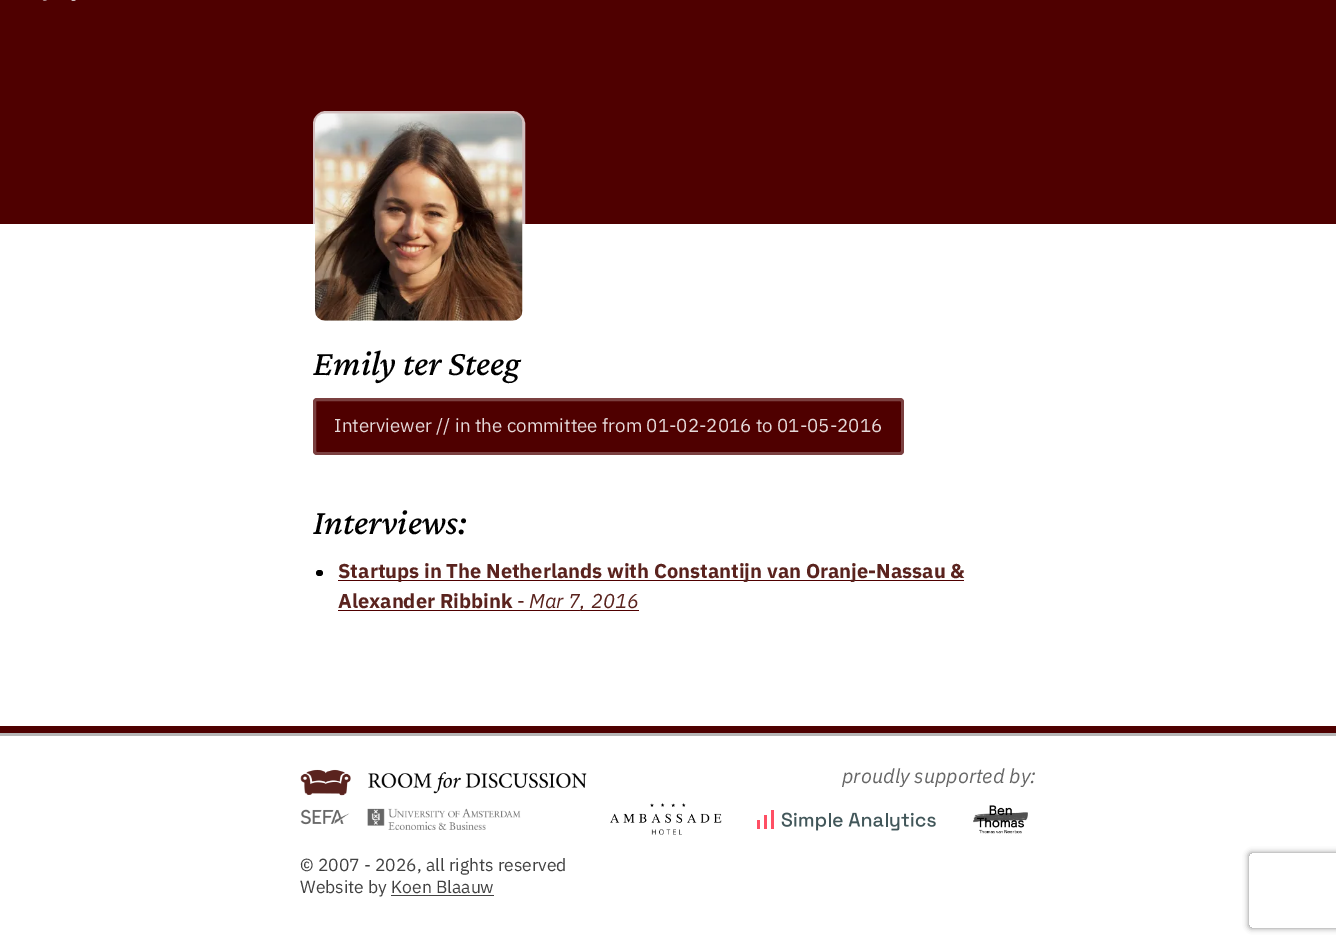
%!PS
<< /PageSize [1336 945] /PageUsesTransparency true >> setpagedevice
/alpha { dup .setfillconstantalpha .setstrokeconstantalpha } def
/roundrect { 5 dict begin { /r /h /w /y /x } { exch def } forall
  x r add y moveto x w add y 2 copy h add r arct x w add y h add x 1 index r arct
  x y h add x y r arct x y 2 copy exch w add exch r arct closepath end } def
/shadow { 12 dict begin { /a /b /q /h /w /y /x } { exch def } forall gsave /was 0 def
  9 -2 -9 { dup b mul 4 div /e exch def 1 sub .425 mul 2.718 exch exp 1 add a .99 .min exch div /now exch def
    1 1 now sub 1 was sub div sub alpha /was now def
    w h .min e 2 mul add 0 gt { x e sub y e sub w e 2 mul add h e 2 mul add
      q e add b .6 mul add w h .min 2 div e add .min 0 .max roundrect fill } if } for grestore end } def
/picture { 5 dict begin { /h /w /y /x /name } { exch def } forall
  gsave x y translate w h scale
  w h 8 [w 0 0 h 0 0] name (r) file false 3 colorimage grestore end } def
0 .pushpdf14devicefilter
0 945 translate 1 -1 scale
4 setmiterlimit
1 setgray
0 0 1336 945 rectfill
0.31 0 0 setrgbcolor
0 0 1336 224 rectfill
(img1.rgb) 42 0 34 1 picture
0.75 alpha
1 setgray
3 setlinewidth
314.5 112.5 209 210 11.5 roundrect stroke
1 alpha
(img2.rgb) 315 113 208 208 picture
/CrimsonPro-MediumItalic [36.25 0 0 -36.25 0 0] selectfont
0 setgray
313 375 moveto (Emily ter Steeg) show
0.31 0 0 setrgbcolor
313 398 591 57 4 roundrect fill
0.25 alpha
1 setgray
314.5 399.5 588 54 2.5 roundrect stroke
/IBMPlexSans-Regular [18.75 0 0 -18.75 0 0] selectfont
1 alpha
0.898 0.851 0.851 setrgbcolor
334 432 moveto (Interviewer // in the committee from 01-02-2016 to 01-05-2016) show
/CrimsonPro-MediumItalic [36.25 0 0 -36.25 0 0] selectfont
0 setgray
313 534 moveto (Interviews:) show
316 570 7 6 3 roundrect fill
0.31 0 0 setrgbcolor
338 580 626 1 rectfill
/IBMPlexSans-Bold [20 0 0 -20 0 0] selectfont
0.353 0.137 0.118 setrgbcolor
338 578 moveto (Startups in The Netherlands with Constantijn van Oranje-Nassau &) show
338 608 moveto (Alexander Ribbink) show
/IBMPlexSans-Regular [20 0 0 -20 0 0] selectfont
517 608 moveto (-) show
0.31 0 0 setrgbcolor
338 610 301 1 rectfill
/IBMPlexSans-Italic [20 0 0 -20 0 0] selectfont
0.353 0.137 0.118 setrgbcolor
529 608 moveto (Mar 7, 2016) show
0.31 0 0 setrgbcolor
0 726 1336 7 rectfill
0.714 setgray
0 733 1336 3 rectfill
0.4 setgray
842 783 moveto (proudly supported by:) show
(img3.rgb) 610 803 112 32 picture
(img4.rgb) 757 810 179 21 picture
(img5.rgb) 973 805 55 29 picture
(img6.rgb) 300 769 287 61 picture
/IBMPlexSans-Regular [17.5 0 0 -17.5 0 0] selectfont
0.259 setgray
300 871 moveto (© 2007 - 2026, all rights reserved) show
300 893 moveto (Website by Koen Blaauw) show
391 895 103 1 rectfill
gsave
newpath 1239 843 moveto 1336 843 lineto 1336 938 lineto 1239 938 lineto closepath 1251.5 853 moveto 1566.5 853 lineto 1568 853 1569 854 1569 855.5 curveto 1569 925.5 lineto 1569 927 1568 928 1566.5 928 curveto 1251.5 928 lineto 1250 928 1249 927 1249 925.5 curveto 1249 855.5 lineto 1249 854 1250 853 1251.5 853 curveto closepath eoclip newpath
0.502 setgray
1249 853 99 75 2.5 3 1 shadow
grestore
.poppdf14devicefilter showpage
